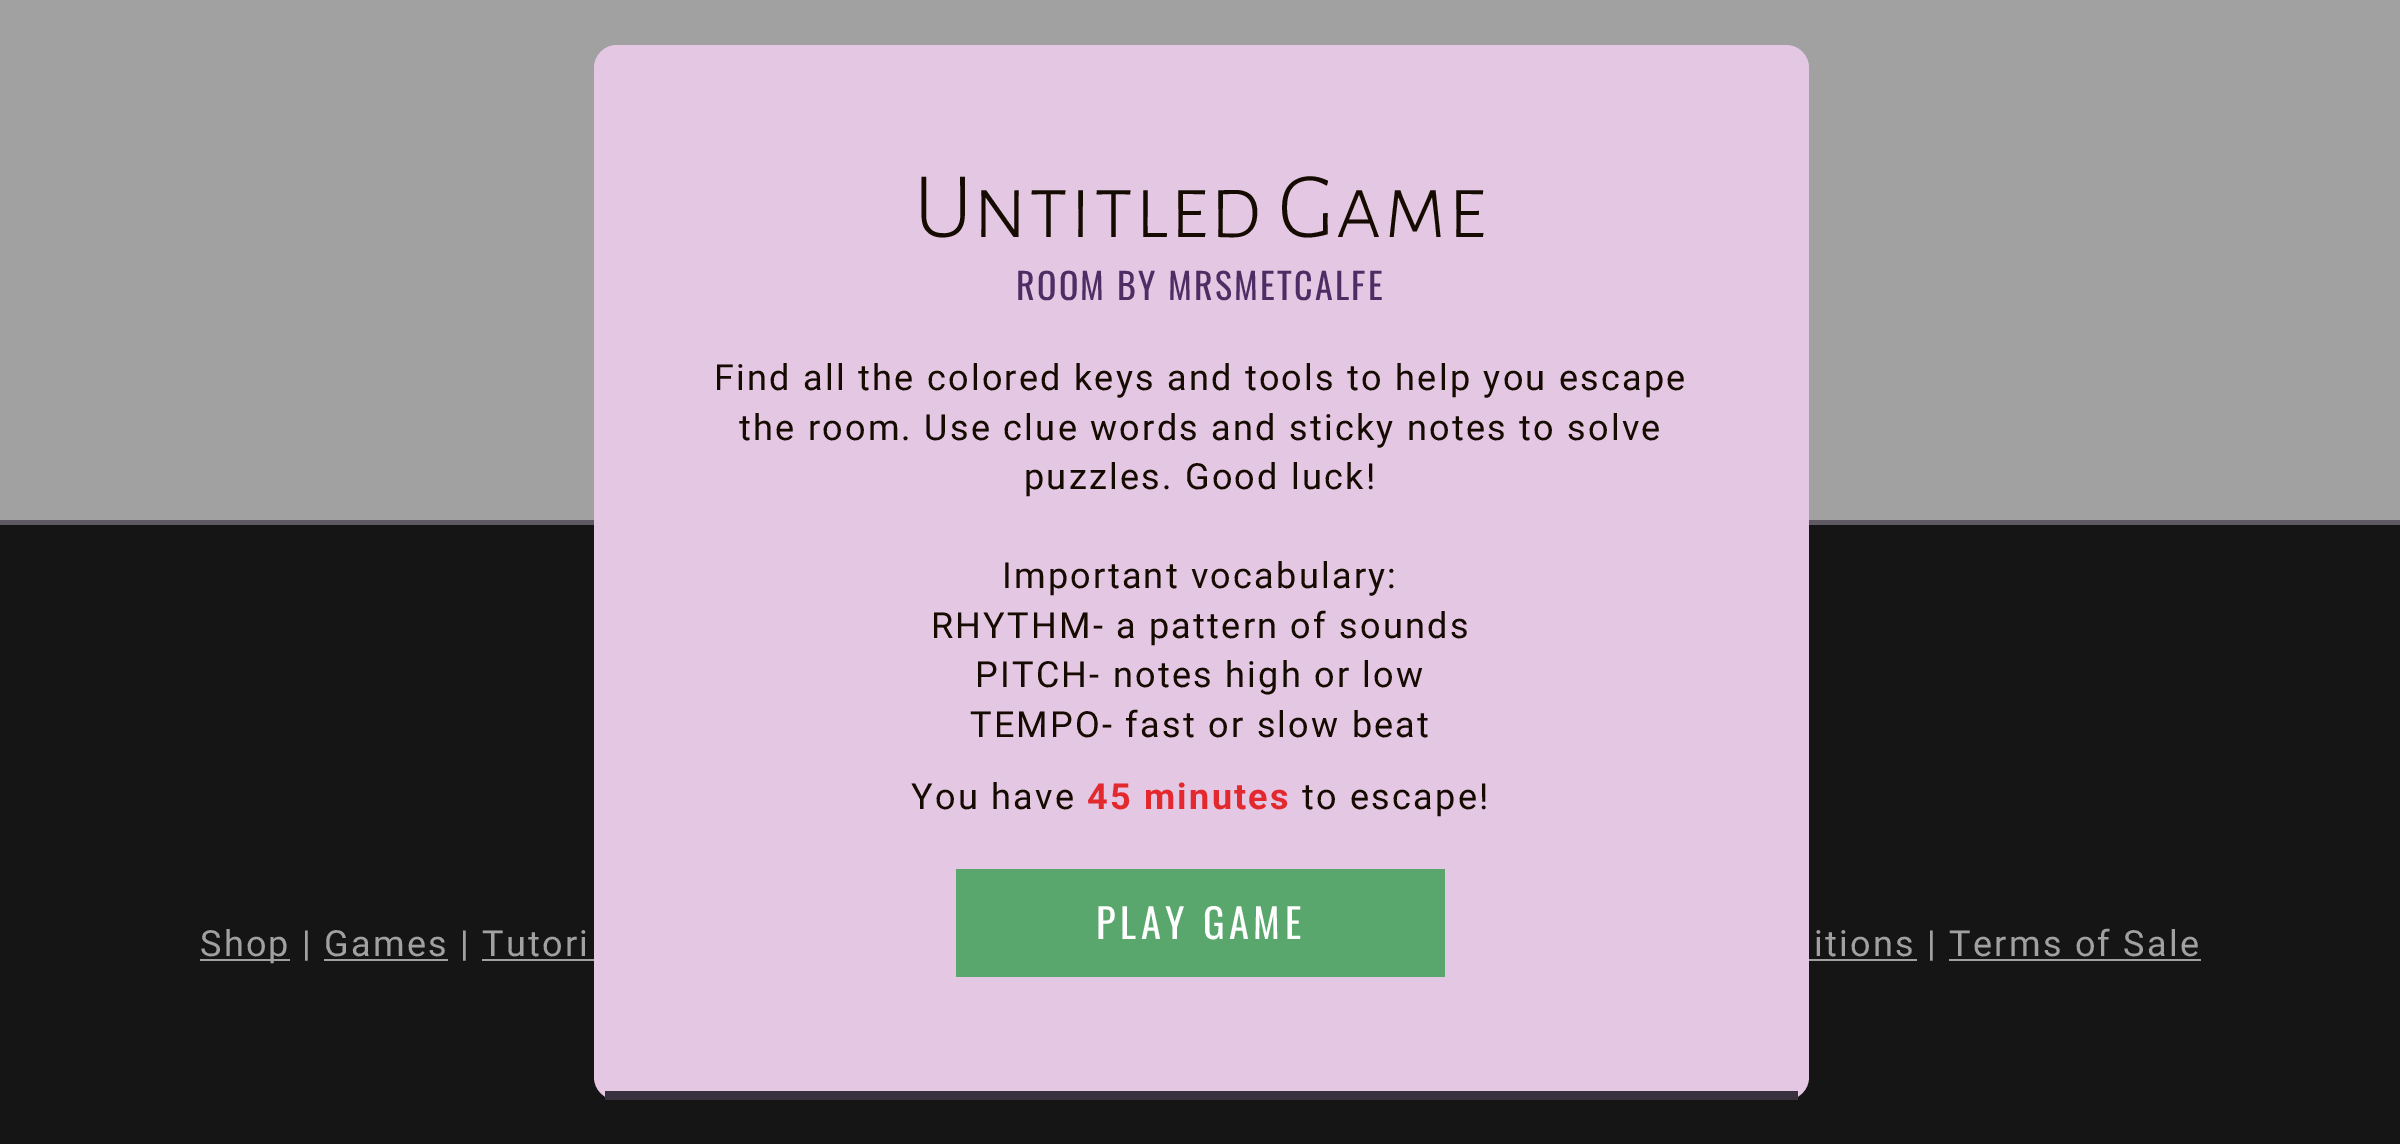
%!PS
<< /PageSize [2400 1144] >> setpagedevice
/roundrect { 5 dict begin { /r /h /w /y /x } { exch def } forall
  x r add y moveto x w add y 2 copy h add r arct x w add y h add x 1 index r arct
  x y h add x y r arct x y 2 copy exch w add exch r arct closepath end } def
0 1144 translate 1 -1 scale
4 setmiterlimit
0.082 setgray
0 0 2400 1144 rectfill
0.631 setgray
0 0 2400 520 rectfill
0.369 0.349 0.384 setrgbcolor
0 520 2400 5 rectfill
0.894 0.78 0.89 setrgbcolor
594 45 1215 1055 23 roundrect fill
0.227 0.192 0.251 setrgbcolor
605 1091 1193 9 rectfill
/AlegreyaSansSC-Light [94.5 0 0 -94.5 0 0] selectfont
0.082 0.043 0.004 setrgbcolor
914 237 moveto (Untitled Game) show
/Oswald-Regular [36 0 0 -36 0 0] selectfont
0.306 0.176 0.392 setrgbcolor
1016 300 moveto 2.25 0 (ROOM BY MRSMETCALFE) ashow
/Roboto-Regular [36 0 0 -36 0 0] selectfont
0.082 0.043 0.004 setrgbcolor
714 390 moveto 2.25 0 (Find all the colored keys and tools to help you escape) ashow
739 440 moveto 2.25 0 (the room. Use clue words and sticky notes to solve) ashow
1024 489 moveto 2.25 0 (puzzles. Good luck!) ashow
1002 588 moveto 2.25 0 (Important vocabulary:) ashow
931 638 moveto 2.25 0 (RHYTHM- a pattern of sounds) ashow
975 687 moveto 2.25 0 (PITCH- notes high or low) ashow
970 737 moveto 2.25 0 (TEMPO- fast or slow beat) ashow
911 809 moveto 2.25 0 (You have) ashow
/Roboto-Bold [36 0 0 -36 0 0] selectfont
0.89 0.161 0.18 setrgbcolor
1087 809 moveto 2.25 0 (45 minutes) ashow
/Roboto-Regular [36 0 0 -36 0 0] selectfont
0.082 0.043 0.004 setrgbcolor
1302 809 moveto 2.25 0 (to escape!) ashow
0.353 0.655 0.431 setrgbcolor
956 869 489 108 rectfill
/Oswald-Regular [40.5 0 0 -40.5 0 0] selectfont
1 setgray
1096 939 moveto 4.5 0 (PLAY GAME) ashow
0.631 setgray
200 959 90 2 rectfill
/Roboto-Regular [36 0 0 -36 0 0] selectfont
200 956 moveto 2.25 0 (Shop | Games | Tutori) ashow
1809 959 108 2 rectfill
1814 956 moveto 2.25 0 (itions | Terms of Sale) ashow
324 959 124 2 rectfill
482 959 112 2 rectfill
1949 959 252 2 rectfill
showpage
